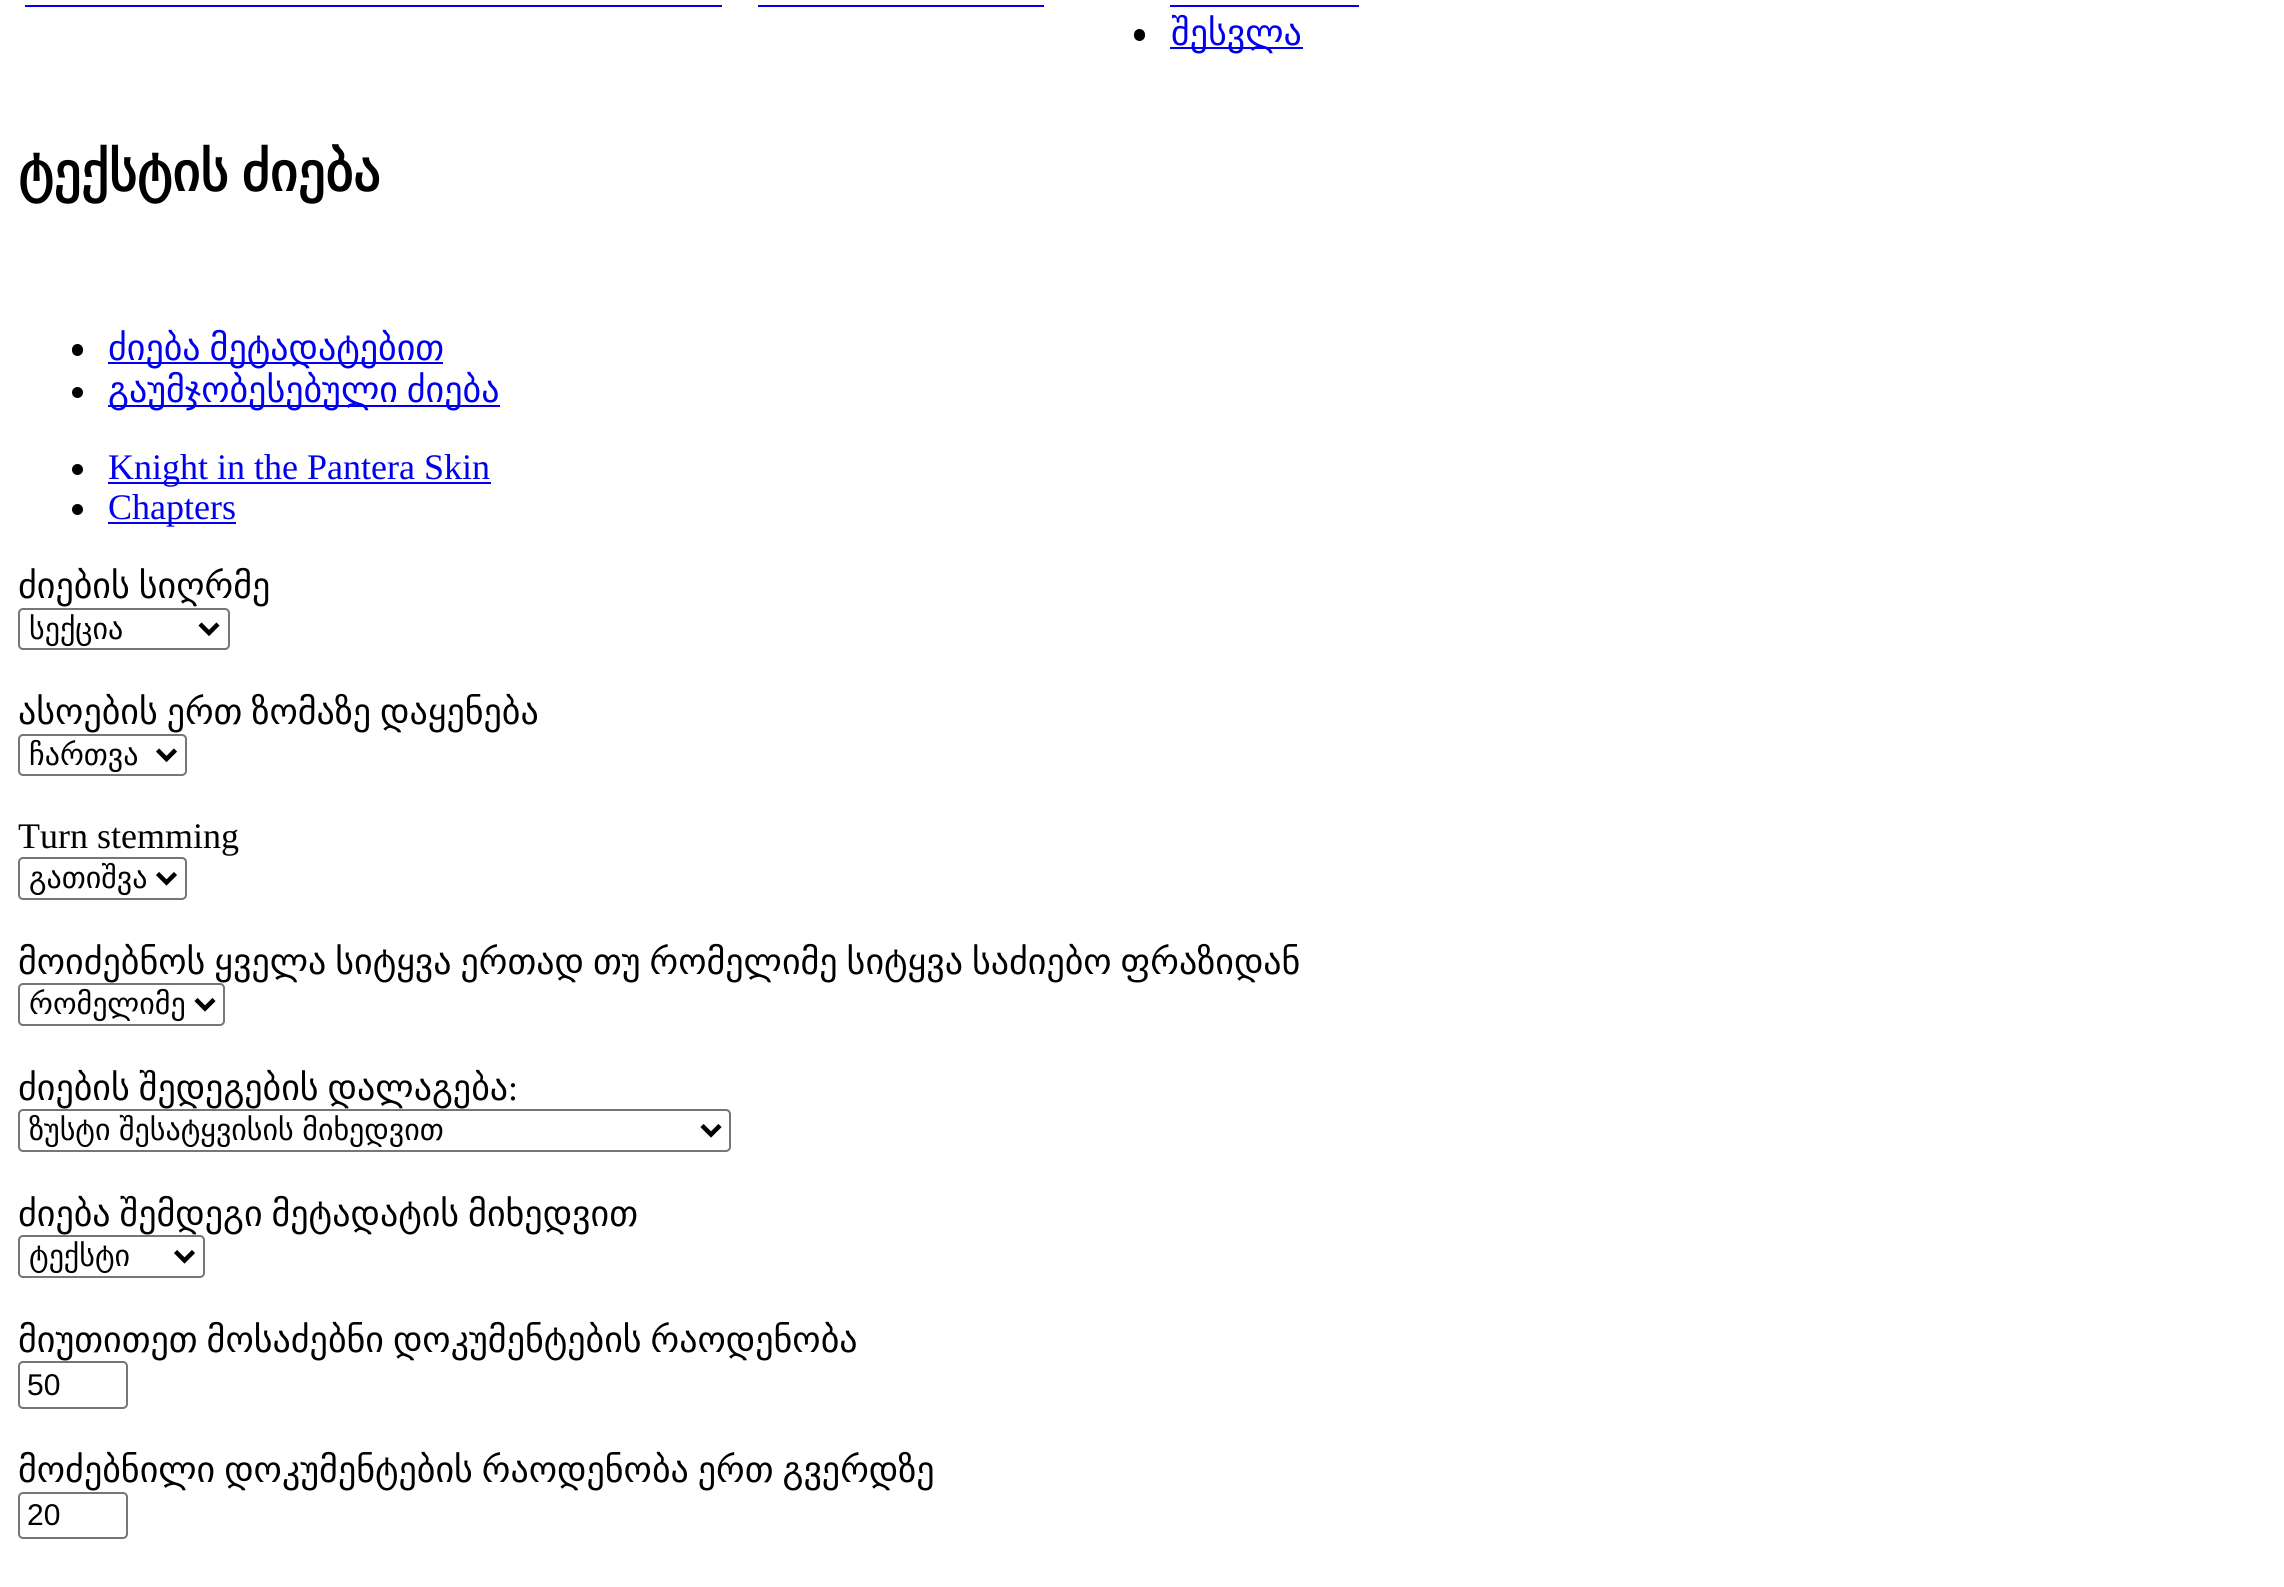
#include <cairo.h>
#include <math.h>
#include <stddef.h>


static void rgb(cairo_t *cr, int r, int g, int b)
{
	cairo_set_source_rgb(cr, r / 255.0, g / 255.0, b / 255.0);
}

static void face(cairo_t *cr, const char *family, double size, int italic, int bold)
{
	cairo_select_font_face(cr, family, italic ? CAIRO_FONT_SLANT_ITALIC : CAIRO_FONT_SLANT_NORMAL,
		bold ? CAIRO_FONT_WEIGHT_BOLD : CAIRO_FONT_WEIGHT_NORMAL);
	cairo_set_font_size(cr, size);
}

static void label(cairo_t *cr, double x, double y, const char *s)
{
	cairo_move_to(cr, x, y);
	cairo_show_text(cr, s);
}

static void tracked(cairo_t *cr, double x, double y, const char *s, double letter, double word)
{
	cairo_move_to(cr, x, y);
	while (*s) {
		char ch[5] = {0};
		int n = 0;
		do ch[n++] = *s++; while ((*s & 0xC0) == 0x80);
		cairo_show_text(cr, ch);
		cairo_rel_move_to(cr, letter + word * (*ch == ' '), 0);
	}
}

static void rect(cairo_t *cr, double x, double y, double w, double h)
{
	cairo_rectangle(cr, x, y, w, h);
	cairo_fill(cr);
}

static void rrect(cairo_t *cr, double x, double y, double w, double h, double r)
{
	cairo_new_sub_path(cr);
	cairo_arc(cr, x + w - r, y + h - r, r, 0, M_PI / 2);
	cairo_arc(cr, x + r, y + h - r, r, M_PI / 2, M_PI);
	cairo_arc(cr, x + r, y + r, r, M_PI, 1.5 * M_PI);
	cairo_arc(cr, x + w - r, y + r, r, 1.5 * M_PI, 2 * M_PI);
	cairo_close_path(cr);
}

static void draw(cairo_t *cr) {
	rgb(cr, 255, 255, 255);
	cairo_paint(cr);
	rgb(cr, 0, 0, 238);
	rect(cr, 25, 5, 697, 2);
	rect(cr, 758, 5, 286, 2);
	rect(cr, 1170, 5, 189, 2);
	rgb(cr, 0, 0, 0);
	rrect(cr, 1134, 29, 11, 12, 5.5);
	cairo_fill(cr);
	rgb(cr, 0, 0, 238);
	rect(cr, 1170, 47, 133, 2);
	face(cr, "DejaVu Sans", 36, 0, 0);
	label(cr, 1171, 45, "შესვლა");
	face(cr, "DejaVu Sans", 54, 0, 1);
	rgb(cr, 0, 0, 0);
	tracked(cr, 18, 191, "ტექსტის ძიება", 0, -4);
	rrect(cr, 72, 344, 11, 12, 5.5);
	cairo_fill(cr);
	rgb(cr, 0, 0, 238);
	rect(cr, 108, 362, 335, 2);
	face(cr, "DejaVu Sans", 36, 0, 0);
	tracked(cr, 108, 360, "ძიება მეტადატებით", 0, -2.5);
	rgb(cr, 0, 0, 0);
	cairo_new_path(cr);
	cairo_arc(cr, 77.5, 392.5, 5.5, 0, 2 * M_PI);
	cairo_fill(cr);
	rgb(cr, 0, 0, 238);
	rect(cr, 108, 405, 392, 2);
	tracked(cr, 108, 402, "გაუმჯობესებული ძიება", 0, -2.5);
	rgb(cr, 0, 0, 0);
	cairo_new_path(cr);
	cairo_arc(cr, 77.5, 469.5, 5.5, 0, 2 * M_PI);
	cairo_fill(cr);
	rgb(cr, 0, 0, 238);
	rect(cr, 108, 482, 383, 2);
	face(cr, "Liberation Serif", 36, 0, 0);
	label(cr, 108, 479, "Knight in the Pantera Skin");
	rgb(cr, 0, 0, 0);
	cairo_new_path(cr);
	cairo_arc(cr, 77.5, 509.5, 5.5, 0, 2 * M_PI);
	cairo_fill(cr);
	rgb(cr, 0, 0, 238);
	rect(cr, 108, 522, 128, 2);
	label(cr, 108, 519, "Chapters");
	face(cr, "DejaVu Sans", 36, 0, 0);
	rgb(cr, 0, 0, 0);
	tracked(cr, 18, 598, "ძიების სიღრმე", 0, -2.5);
	rrect(cr, 19, 609, 210, 40, 4);
	rgb(cr, 118, 118, 118);
	cairo_stroke(cr);
	cairo_new_path(cr);
	cairo_move_to(cr, 200, 624);
	cairo_line_to(cr, 209, 633);
	cairo_line_to(cr, 218, 624);
	rgb(cr, 0, 0, 0);
	cairo_set_line_width(cr, 4.5);
	cairo_stroke(cr);
	face(cr, "DejaVu Sans", 30, 0, 0);
	label(cr, 29, 639, "სექცია");
	face(cr, "DejaVu Sans", 36, 0, 0);
	tracked(cr, 18, 724, "ასოების ერთ ზომაზე დაყენება", 0, -2.5);
	rrect(cr, 19, 735, 167, 40, 4);
	rgb(cr, 118, 118, 118);
	cairo_set_line_width(cr, 2);
	cairo_stroke(cr);
	cairo_new_path(cr);
	cairo_move_to(cr, 157.5, 750);
	cairo_line_to(cr, 166.5, 759);
	cairo_line_to(cr, 175.5, 750);
	rgb(cr, 0, 0, 0);
	cairo_set_line_width(cr, 4.5);
	cairo_stroke(cr);
	face(cr, "DejaVu Sans", 30, 0, 0);
	label(cr, 29, 765, "ჩართვა");
	face(cr, "Liberation Serif", 36, 0, 0);
	label(cr, 18, 848, "Turn stemming");
	rrect(cr, 19, 858, 167, 41, 4);
	rgb(cr, 118, 118, 118);
	cairo_set_line_width(cr, 2);
	cairo_stroke(cr);
	cairo_new_path(cr);
	cairo_move_to(cr, 157.5, 873.5);
	cairo_line_to(cr, 166.5, 882.5);
	cairo_line_to(cr, 175.5, 873.5);
	rgb(cr, 0, 0, 0);
	cairo_set_line_width(cr, 4.5);
	cairo_stroke(cr);
	face(cr, "DejaVu Sans", 30, 0, 0);
	label(cr, 29, 888, "გათიშვა");
	face(cr, "DejaVu Sans", 36, 0, 0);
	tracked(cr, 18, 974, "მოიძებნოს ყველა სიტყვა ერთად თუ რომელიმე სიტყვა საძიებო ფრაზიდან", 0, -2.5);
	rrect(cr, 19, 984, 205, 41, 4);
	rgb(cr, 118, 118, 118);
	cairo_set_line_width(cr, 2);
	cairo_stroke(cr);
	cairo_new_path(cr);
	cairo_move_to(cr, 196, 999.5);
	cairo_line_to(cr, 205, 1008.5);
	cairo_line_to(cr, 214, 999.5);
	rgb(cr, 0, 0, 0);
	cairo_set_line_width(cr, 4.5);
	cairo_stroke(cr);
	face(cr, "DejaVu Sans", 30, 0, 0);
	label(cr, 29, 1014, "რომელიმე");
	face(cr, "DejaVu Sans", 36, 0, 0);
	tracked(cr, 18, 1100, "ძიების შედეგების დალაგება", 0, -2.5);
	face(cr, "Liberation Serif", 36, 0, 0);
	label(cr, 508, 1100, ":");
	rrect(cr, 19, 1110, 711, 41, 4);
	rgb(cr, 118, 118, 118);
	cairo_set_line_width(cr, 2);
	cairo_stroke(cr);
	cairo_new_path(cr);
	cairo_move_to(cr, 702, 1125.5);
	cairo_line_to(cr, 711, 1134.5);
	cairo_line_to(cr, 720, 1125.5);
	rgb(cr, 0, 0, 0);
	cairo_set_line_width(cr, 4.5);
	cairo_stroke(cr);
	face(cr, "DejaVu Sans", 30, 0, 0);
	tracked(cr, 29, 1140, "ზუსტი შესატყვისის მიხედვით", 0, -1);
	face(cr, "DejaVu Sans", 36, 0, 0);
	tracked(cr, 18, 1226, "ძიება შემდეგი მეტადატის მიხედვით", 0, -2.5);
	rrect(cr, 19, 1236, 185, 41, 4);
	rgb(cr, 118, 118, 118);
	cairo_set_line_width(cr, 2);
	cairo_stroke(cr);
	cairo_new_path(cr);
	cairo_move_to(cr, 175.5, 1251.5);
	cairo_line_to(cr, 184.5, 1260.5);
	cairo_line_to(cr, 193.5, 1251.5);
	rgb(cr, 0, 0, 0);
	cairo_set_line_width(cr, 4.5);
	cairo_stroke(cr);
	face(cr, "DejaVu Sans", 30, 0, 0);
	label(cr, 29, 1266, "ტექსტი");
	face(cr, "DejaVu Sans", 36, 0, 0);
	tracked(cr, 18, 1352, "მიუთითეთ მოსაძებნი დოკუმენტების რაოდენობა", 0, -2.5);
	rrect(cr, 19, 1362, 108, 46, 4);
	rgb(cr, 118, 118, 118);
	cairo_set_line_width(cr, 2);
	cairo_stroke(cr);
	face(cr, "Liberation Sans", 30, 0, 0);
	rgb(cr, 0, 0, 0);
	label(cr, 27, 1395, "50");
	face(cr, "DejaVu Sans", 36, 0, 0);
	tracked(cr, 18, 1482, "მოძებნილი დოკუმენტების რაოდენობა ერთ გვერდზე", 0, -2.5);
	rrect(cr, 19, 1493, 108, 45, 4);
	rgb(cr, 118, 118, 118);
	cairo_stroke(cr);
	face(cr, "Liberation Sans", 30, 0, 0);
	rgb(cr, 0, 0, 0);
	label(cr, 27, 1525, "20");
}

int main(void) {
	cairo_surface_t *surface = cairo_image_surface_create(CAIRO_FORMAT_RGB24, 2284, 1587);
	cairo_t *cr = cairo_create(surface);
	cairo_font_options_t *options = cairo_font_options_create();
	cairo_font_options_set_hint_metrics(options, CAIRO_HINT_METRICS_OFF);
	cairo_font_options_set_hint_style(options, CAIRO_HINT_STYLE_NONE);
	cairo_set_font_options(cr, options);
	cairo_set_miter_limit(cr, 4);
	draw(cr);
	cairo_surface_write_to_png(surface, "render.png");
	cairo_font_options_destroy(options);
	cairo_destroy(cr);
	cairo_surface_destroy(surface);
	return 0;
}
